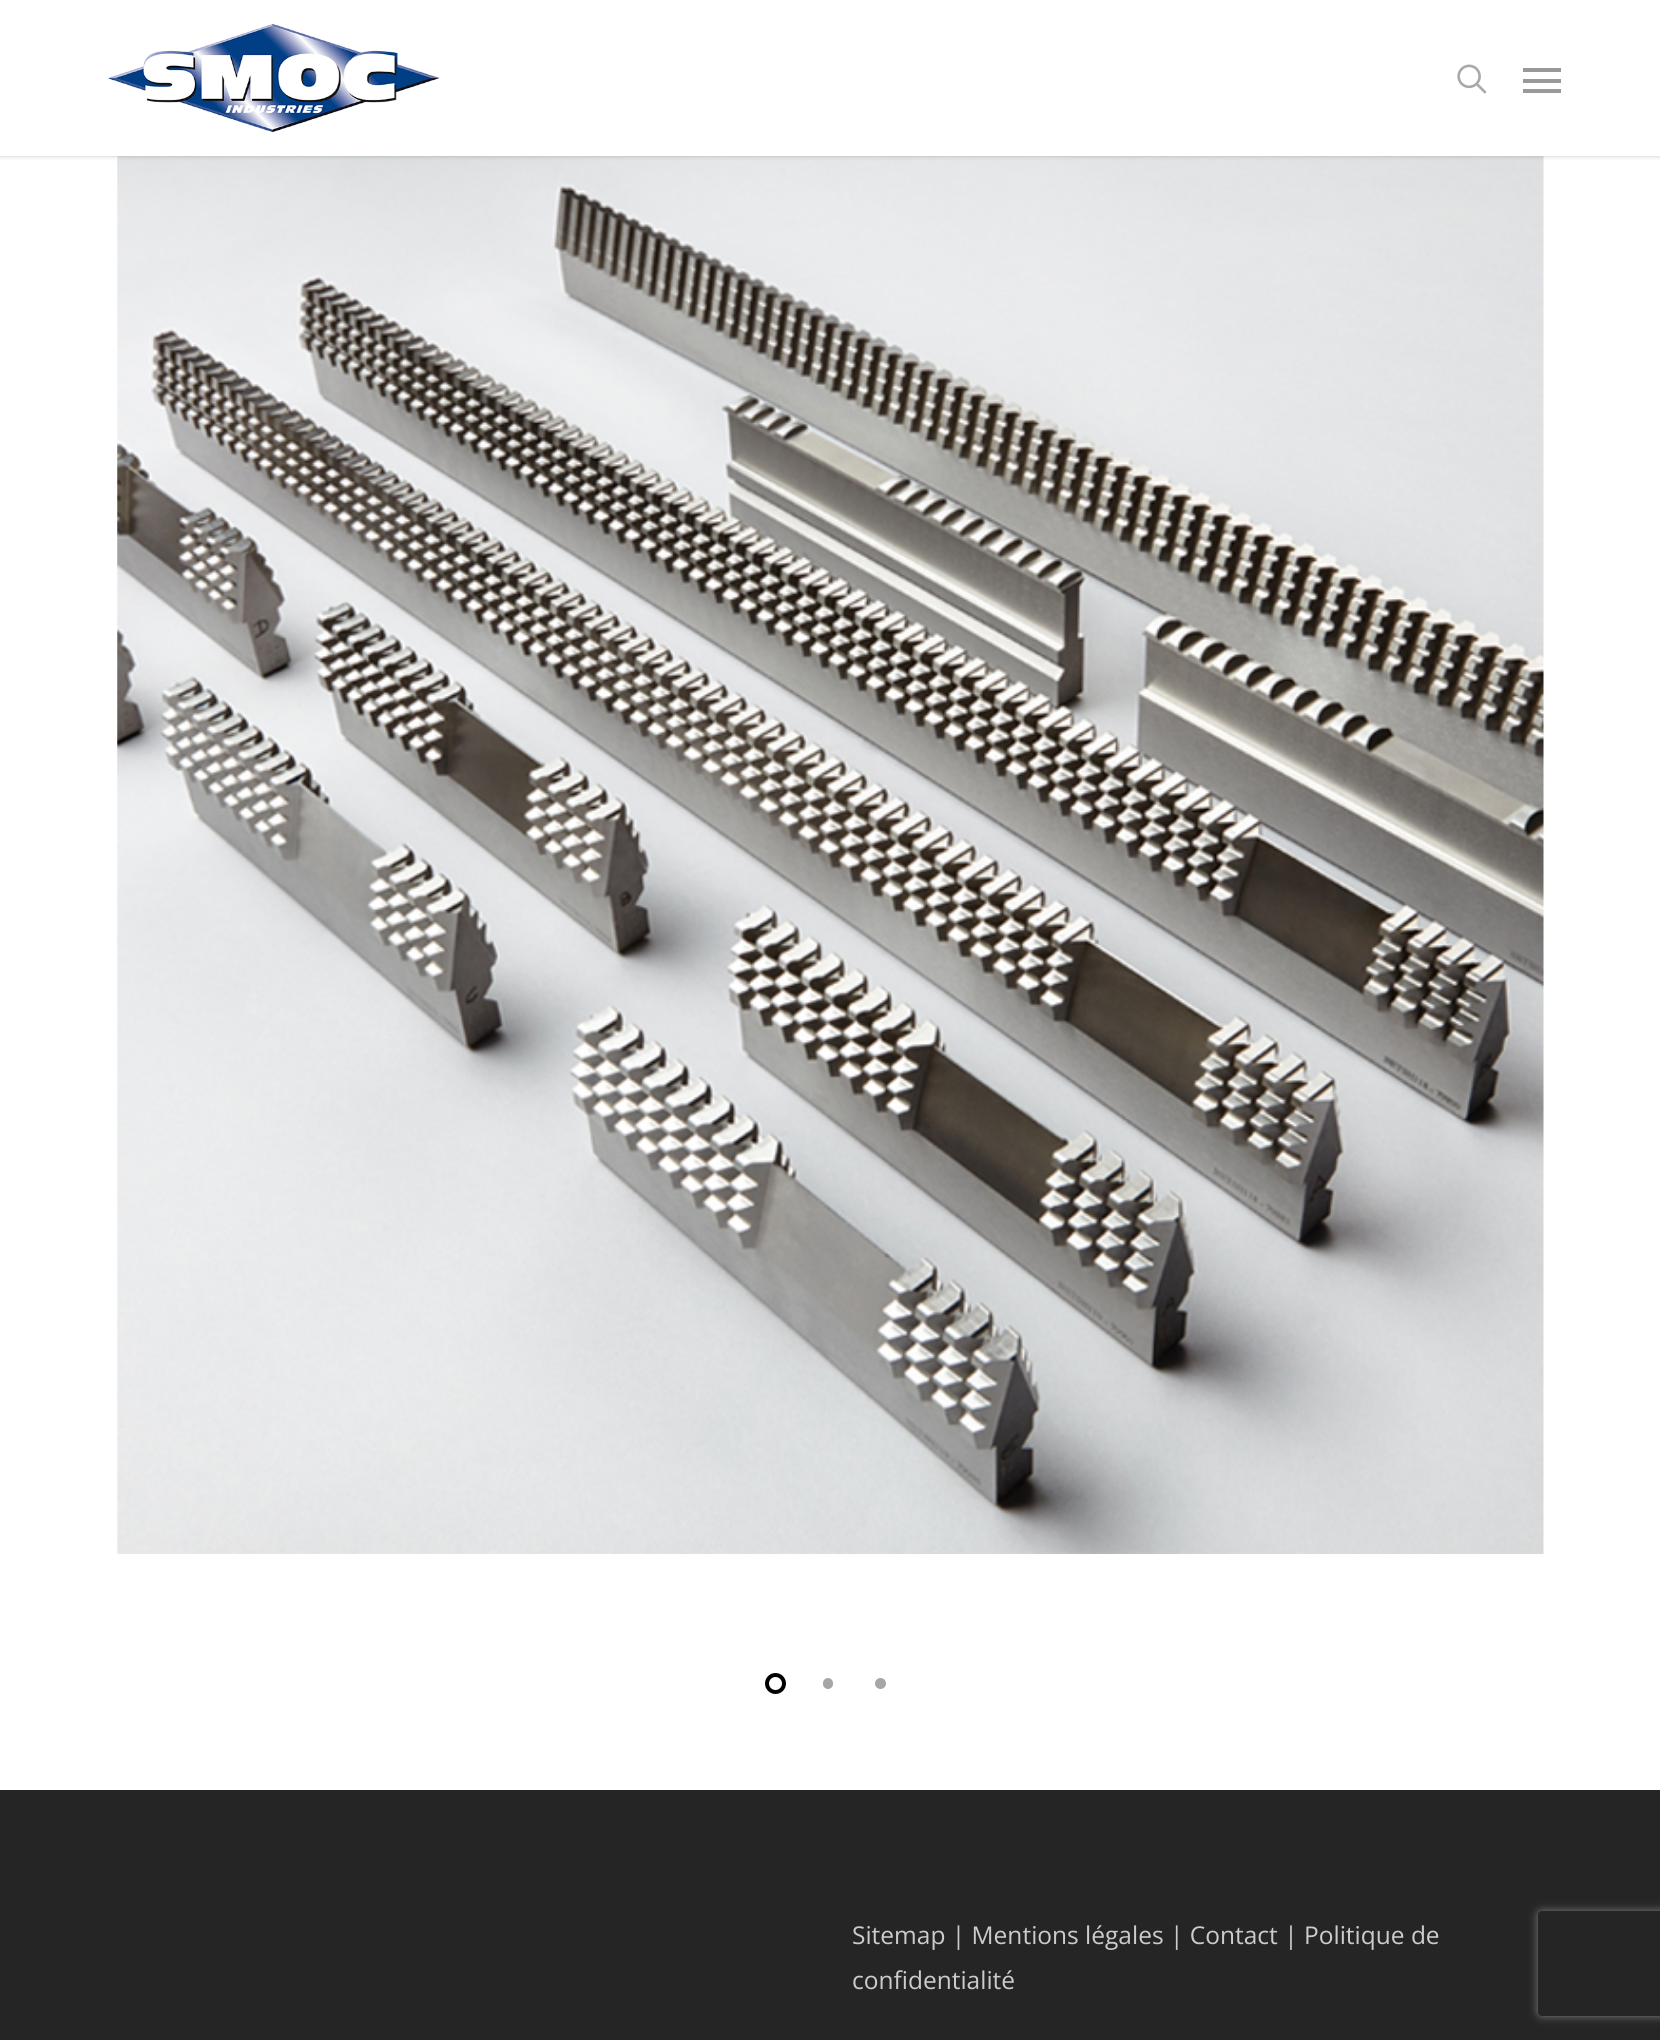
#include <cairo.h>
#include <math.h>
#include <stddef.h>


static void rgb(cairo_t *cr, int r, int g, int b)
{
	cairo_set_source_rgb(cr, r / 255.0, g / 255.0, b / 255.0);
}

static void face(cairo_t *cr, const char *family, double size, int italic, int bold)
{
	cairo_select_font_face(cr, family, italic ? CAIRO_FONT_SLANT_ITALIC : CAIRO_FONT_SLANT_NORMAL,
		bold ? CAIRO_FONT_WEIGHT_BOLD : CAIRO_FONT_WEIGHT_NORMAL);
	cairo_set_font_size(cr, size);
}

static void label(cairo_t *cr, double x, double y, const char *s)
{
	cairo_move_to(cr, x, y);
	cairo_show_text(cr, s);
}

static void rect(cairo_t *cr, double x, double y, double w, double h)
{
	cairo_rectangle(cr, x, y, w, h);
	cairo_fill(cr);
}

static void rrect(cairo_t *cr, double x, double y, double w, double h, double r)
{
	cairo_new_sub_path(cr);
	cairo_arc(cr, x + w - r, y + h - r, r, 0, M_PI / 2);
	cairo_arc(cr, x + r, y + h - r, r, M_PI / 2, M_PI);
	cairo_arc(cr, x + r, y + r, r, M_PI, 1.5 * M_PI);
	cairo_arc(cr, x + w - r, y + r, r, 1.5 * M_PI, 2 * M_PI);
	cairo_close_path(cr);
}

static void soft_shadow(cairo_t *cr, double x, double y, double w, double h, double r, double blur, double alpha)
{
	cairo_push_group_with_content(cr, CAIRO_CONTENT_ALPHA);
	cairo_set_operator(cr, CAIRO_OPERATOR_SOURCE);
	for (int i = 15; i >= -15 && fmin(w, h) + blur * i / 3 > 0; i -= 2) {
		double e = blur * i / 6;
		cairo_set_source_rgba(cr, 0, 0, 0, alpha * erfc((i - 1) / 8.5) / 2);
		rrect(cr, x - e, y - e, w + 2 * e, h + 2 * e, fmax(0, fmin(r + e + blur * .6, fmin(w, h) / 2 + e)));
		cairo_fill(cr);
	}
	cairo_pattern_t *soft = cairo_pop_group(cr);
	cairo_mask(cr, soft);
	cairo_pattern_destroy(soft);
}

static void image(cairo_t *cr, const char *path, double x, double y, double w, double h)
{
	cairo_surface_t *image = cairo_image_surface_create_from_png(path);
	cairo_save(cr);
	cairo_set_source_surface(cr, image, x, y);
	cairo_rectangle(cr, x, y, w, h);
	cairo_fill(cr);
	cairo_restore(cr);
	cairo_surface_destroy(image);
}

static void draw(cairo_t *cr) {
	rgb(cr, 255, 255, 255);
	cairo_paint(cr);
	image(cr, "image2.png", 117, 156, 1427, 1398);
	rgb(cr, 0, 0, 0);
	soft_shadow(cr, 0, 0, 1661, 156, 0, 2.5, 0.22);
	rgb(cr, 255, 255, 255);
	rect(cr, 0, 0, 1660, 156);
	image(cr, "image0.png", 108, 23, 332, 110);
	image(cr, "image1.png", 1457, 64, 30, 30);
	rgb(cr, 153, 153, 153);
	rect(cr, 1523, 68, 38, 4);
	rect(cr, 1523, 89, 38, 4);
	rect(cr, 1523, 79, 38, 4);
	cairo_arc(cr, 775.5, 1683.5, 8.5, 0, 2 * M_PI);
	rgb(cr, 0, 0, 0);
	cairo_set_line_width(cr, 4);
	cairo_stroke(cr);
	rgb(cr, 166, 166, 166);
	rrect(cr, 823, 1678, 10, 11, 5);
	cairo_fill(cr);
	cairo_arc(cr, 880.5, 1683.5, 5.5, 0, 2 * M_PI);
	cairo_fill(cr);
	rgb(cr, 37, 37, 37);
	rect(cr, 0, 1790, 1660, 250);
	face(cr, "Open Sans", 24.5, 0, 0);
	rgb(cr, 204, 204, 204);
	label(cr, 852, 1944, "Sitemap | Mentions légales | Contact | Politique de");
	label(cr, 852, 1989, "confidentialité");
	cairo_save(cr);
	cairo_set_fill_rule(cr, CAIRO_FILL_RULE_EVEN_ODD);
	cairo_new_path(cr);
	cairo_move_to(cr, 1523, 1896);
	cairo_line_to(cr, 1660, 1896);
	cairo_line_to(cr, 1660, 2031);
	cairo_line_to(cr, 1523, 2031);
	cairo_close_path(cr);
	cairo_move_to(cr, 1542, 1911);
	cairo_line_to(cr, 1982, 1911);
	cairo_curve_to(cr, 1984, 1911, 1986, 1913, 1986, 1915);
	cairo_line_to(cr, 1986, 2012);
	cairo_curve_to(cr, 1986, 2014, 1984, 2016, 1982, 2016);
	cairo_line_to(cr, 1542, 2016);
	cairo_curve_to(cr, 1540, 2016, 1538, 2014, 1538, 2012);
	cairo_line_to(cr, 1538, 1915);
	cairo_curve_to(cr, 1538, 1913, 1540, 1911, 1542, 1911);
	cairo_close_path(cr);
	cairo_clip(cr);
	rgb(cr, 128, 128, 128);
	soft_shadow(cr, 1538, 1911, 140, 105, 4, 4.5, 1);
	cairo_restore(cr);
}

int main(void) {
	cairo_surface_t *surface = cairo_image_surface_create(CAIRO_FORMAT_RGB24, 1660, 2040);
	cairo_t *cr = cairo_create(surface);
	cairo_font_options_t *options = cairo_font_options_create();
	cairo_font_options_set_hint_metrics(options, CAIRO_HINT_METRICS_OFF);
	cairo_font_options_set_hint_style(options, CAIRO_HINT_STYLE_NONE);
	cairo_set_font_options(cr, options);
	cairo_set_miter_limit(cr, 4);
	draw(cr);
	cairo_surface_write_to_png(surface, "render.png");
	cairo_font_options_destroy(options);
	cairo_destroy(cr);
	cairo_surface_destroy(surface);
	return 0;
}
